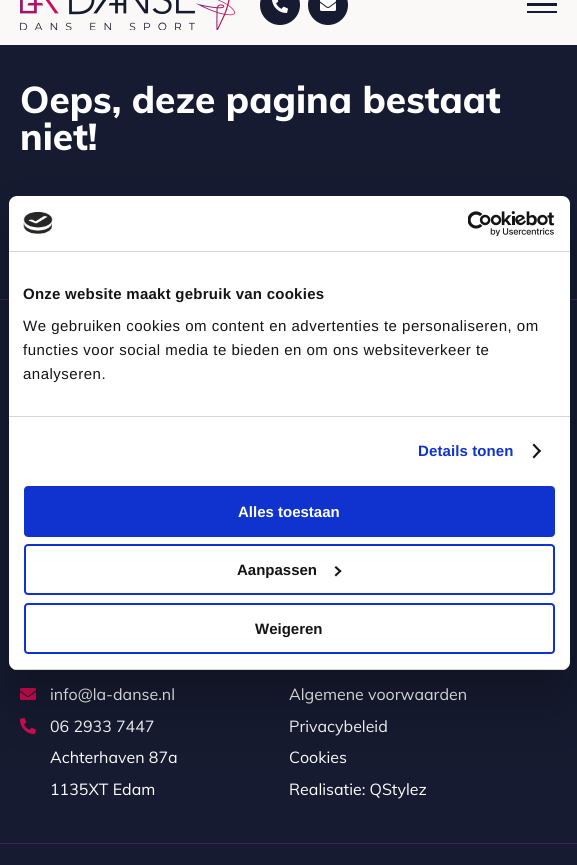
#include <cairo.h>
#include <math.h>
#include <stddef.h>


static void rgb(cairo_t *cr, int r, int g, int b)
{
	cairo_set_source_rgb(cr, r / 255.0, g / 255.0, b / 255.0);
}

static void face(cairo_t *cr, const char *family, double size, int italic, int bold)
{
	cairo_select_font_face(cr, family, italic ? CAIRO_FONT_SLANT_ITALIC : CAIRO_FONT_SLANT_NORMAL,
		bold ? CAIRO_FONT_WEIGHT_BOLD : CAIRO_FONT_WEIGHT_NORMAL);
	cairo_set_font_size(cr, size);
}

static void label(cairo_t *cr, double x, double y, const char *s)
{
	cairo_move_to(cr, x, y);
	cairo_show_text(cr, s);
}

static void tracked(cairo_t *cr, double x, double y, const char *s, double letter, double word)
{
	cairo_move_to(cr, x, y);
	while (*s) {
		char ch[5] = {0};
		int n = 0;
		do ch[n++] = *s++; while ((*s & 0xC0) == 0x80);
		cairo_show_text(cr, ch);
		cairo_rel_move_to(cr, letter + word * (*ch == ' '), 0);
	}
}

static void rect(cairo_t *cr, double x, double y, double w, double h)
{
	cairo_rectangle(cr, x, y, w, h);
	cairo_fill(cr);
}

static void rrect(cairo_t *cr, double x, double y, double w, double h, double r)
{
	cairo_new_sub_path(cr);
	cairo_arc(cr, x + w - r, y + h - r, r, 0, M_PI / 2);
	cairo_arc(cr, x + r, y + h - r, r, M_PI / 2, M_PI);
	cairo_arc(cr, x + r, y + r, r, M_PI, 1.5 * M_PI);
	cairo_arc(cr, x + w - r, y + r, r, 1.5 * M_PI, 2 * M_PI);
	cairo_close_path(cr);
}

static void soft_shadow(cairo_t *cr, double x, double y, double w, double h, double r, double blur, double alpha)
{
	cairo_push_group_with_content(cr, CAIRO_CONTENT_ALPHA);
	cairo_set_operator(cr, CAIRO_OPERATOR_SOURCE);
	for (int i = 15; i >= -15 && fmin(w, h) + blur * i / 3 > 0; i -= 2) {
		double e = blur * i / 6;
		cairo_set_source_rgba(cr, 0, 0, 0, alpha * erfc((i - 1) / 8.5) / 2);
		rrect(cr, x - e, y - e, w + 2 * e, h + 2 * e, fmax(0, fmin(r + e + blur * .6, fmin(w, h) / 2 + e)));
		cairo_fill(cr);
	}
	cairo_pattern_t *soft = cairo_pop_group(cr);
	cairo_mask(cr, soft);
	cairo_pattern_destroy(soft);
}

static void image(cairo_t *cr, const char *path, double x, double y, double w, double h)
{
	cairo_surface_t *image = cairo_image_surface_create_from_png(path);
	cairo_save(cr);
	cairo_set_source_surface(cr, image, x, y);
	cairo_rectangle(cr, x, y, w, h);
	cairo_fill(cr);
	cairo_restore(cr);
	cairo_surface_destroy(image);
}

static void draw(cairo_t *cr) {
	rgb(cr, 22, 27, 49);
	cairo_paint(cr);
	rgb(cr, 251, 249, 248);
	rect(cr, 0, 0, 577, 45);
	image(cr, "image0.png", 20, 0, 215, 30);
	rgb(cr, 22, 27, 49);
	cairo_arc(cr, 280, 5, 20, 0, 2 * M_PI);
	cairo_fill(cr);
	image(cr, "image1.png", 272, 0, 16, 13);
	cairo_arc(cr, 328, 5, 20, 0, 2 * M_PI);
	cairo_fill(cr);
	image(cr, "image2.png", 320, 0, 16, 11);
	rect(cr, 527, 3, 30, 3);
	rect(cr, 527, 11, 30, 2);
	face(cr, "Muli ExtraBold", 37, 0, 0);
	rgb(cr, 255, 255, 255);
	label(cr, 20, 113, "Oeps, deze pagina bestaat");
	label(cr, 20, 150, "niet!");
	rgb(cr, 62, 32, 90);
	rect(cr, 0, 299, 577, 1);
	rect(cr, 0, 843, 577, 1);
	image(cr, "image3.png", 20, 688, 16, 12);
	face(cr, "Muli", 16, 0, 0);
	rgb(cr, 255, 255, 255);
	label(cr, 50, 700, "info@la-danse.nl");
	image(cr, "image4.png", 20, 718, 16, 16);
	label(cr, 50, 732, "06 2933 7447");
	label(cr, 50, 763, "Achterhaven 87a");
	label(cr, 50, 795, "1135XT Edam");
	label(cr, 289, 700, "Algemene voorwaarden");
	label(cr, 289, 732, "Privacybeleid");
	label(cr, 289, 763, "Cookies");
	label(cr, 289, 795, "Realisatie: QStylez");
	rgb(cr, 0, 0, 0);
	soft_shadow(cr, 9, 228, 561, 474, 8, 34, 0.3);
	rgb(cr, 255, 255, 255);
	rrect(cr, 9, 196, 561, 474, 8);
	cairo_fill(cr);
	rgb(cr, 214, 214, 214);
	rect(cr, 9, 251, 561, 1);
	image(cr, "image5.png", 23, 212, 30, 22);
	image(cr, "image6.png", 468, 211, 87, 25);
	rect(cr, 9, 416, 561, 1);
	face(cr, "Liberation Sans", 15, 0, 1);
	rgb(cr, 20, 20, 20);
	tracked(cr, 23, 299, "Onze website maakt gebruik van cookies", 0.25, 0);
	face(cr, "Liberation Sans", 15, 0, 0);
	tracked(cr, 23, 331, "We gebruiken cookies om content en advertenties te personaliseren, om", 0.5, 0);
	tracked(cr, 23, 355, "functies voor social media te bieden en om ons websiteverkeer te", 0.5, 0);
	tracked(cr, 23, 379, "analyseren.", 0.5, 0);
	face(cr, "Liberation Sans", 15, 0, 1);
	rgb(cr, 16, 50, 207);
	tracked(cr, 418, 456, "Details tonen", 0.1, 0);
	rgb(cr, 20, 20, 20);
	cairo_new_path(cr);
	cairo_move_to(cr, 534, 443.5);
	cairo_line_to(cr, 541, 451);
	cairo_line_to(cr, 539.5, 452.5);
	cairo_line_to(cr, 532.5, 445);
	cairo_close_path(cr);
	cairo_fill(cr);
	cairo_new_path(cr);
	cairo_move_to(cr, 539.5, 449.5);
	cairo_line_to(cr, 541, 451);
	cairo_line_to(cr, 534, 458.5);
	cairo_line_to(cr, 532.5, 457);
	cairo_close_path(cr);
	cairo_fill(cr);
	cairo_save(cr);
	rrect(cr, 9, 196, 561, 474, 8);
	cairo_clip(cr);
	rgb(cr, 214, 214, 214);
	rect(cr, 9, 669, 561, 1);
	cairo_restore(cr);
	rgb(cr, 16, 50, 207);
	rrect(cr, 25, 487, 529, 49, 3);
	cairo_fill_preserve(cr);
	cairo_stroke(cr);
	rgb(cr, 255, 255, 255);
	label(cr, 238, 517, "Alles toestaan");
	rrect(cr, 25, 545, 529, 49, 3);
	rgb(cr, 16, 50, 207);
	cairo_stroke(cr);
	rgb(cr, 20, 20, 20);
	label(cr, 237, 575, "Aanpassen");
	cairo_new_path(cr);
	cairo_move_to(cr, 336, 566);
	cairo_line_to(cr, 341.5, 571);
	cairo_line_to(cr, 340, 572.5);
	cairo_line_to(cr, 334.5, 567.5);
	cairo_close_path(cr);
	cairo_fill(cr);
	cairo_new_path(cr);
	cairo_move_to(cr, 340, 570);
	cairo_line_to(cr, 341.5, 571);
	cairo_line_to(cr, 336, 576.5);
	cairo_line_to(cr, 334.5, 575);
	cairo_close_path(cr);
	cairo_fill(cr);
	rrect(cr, 25, 604, 529, 49, 3);
	rgb(cr, 16, 50, 207);
	cairo_stroke(cr);
	rgb(cr, 20, 20, 20);
	label(cr, 255, 634, "Weigeren");
}

int main(void) {
	cairo_surface_t *surface = cairo_image_surface_create(CAIRO_FORMAT_RGB24, 577, 865);
	cairo_t *cr = cairo_create(surface);
	cairo_font_options_t *options = cairo_font_options_create();
	cairo_font_options_set_hint_metrics(options, CAIRO_HINT_METRICS_OFF);
	cairo_font_options_set_hint_style(options, CAIRO_HINT_STYLE_NONE);
	cairo_set_font_options(cr, options);
	cairo_set_miter_limit(cr, 4);
	draw(cr);
	cairo_surface_write_to_png(surface, "render.png");
	cairo_font_options_destroy(options);
	cairo_destroy(cr);
	cairo_surface_destroy(surface);
	return 0;
}
